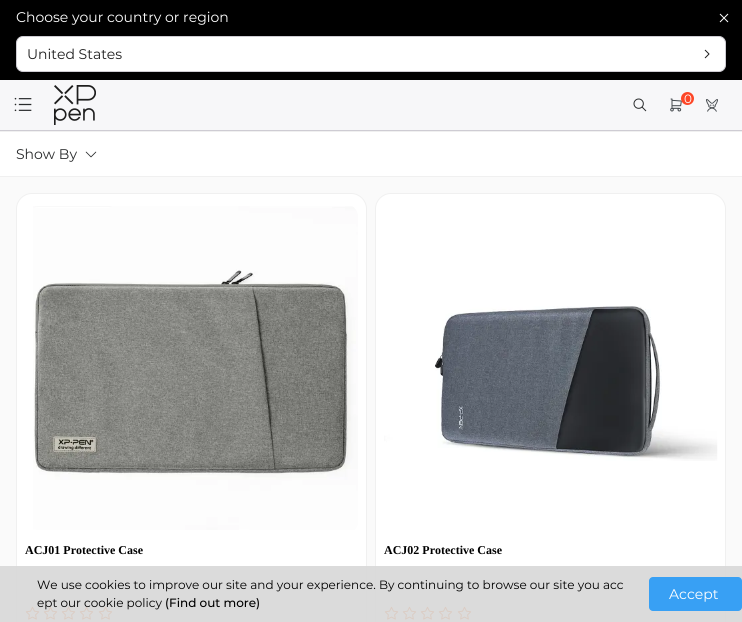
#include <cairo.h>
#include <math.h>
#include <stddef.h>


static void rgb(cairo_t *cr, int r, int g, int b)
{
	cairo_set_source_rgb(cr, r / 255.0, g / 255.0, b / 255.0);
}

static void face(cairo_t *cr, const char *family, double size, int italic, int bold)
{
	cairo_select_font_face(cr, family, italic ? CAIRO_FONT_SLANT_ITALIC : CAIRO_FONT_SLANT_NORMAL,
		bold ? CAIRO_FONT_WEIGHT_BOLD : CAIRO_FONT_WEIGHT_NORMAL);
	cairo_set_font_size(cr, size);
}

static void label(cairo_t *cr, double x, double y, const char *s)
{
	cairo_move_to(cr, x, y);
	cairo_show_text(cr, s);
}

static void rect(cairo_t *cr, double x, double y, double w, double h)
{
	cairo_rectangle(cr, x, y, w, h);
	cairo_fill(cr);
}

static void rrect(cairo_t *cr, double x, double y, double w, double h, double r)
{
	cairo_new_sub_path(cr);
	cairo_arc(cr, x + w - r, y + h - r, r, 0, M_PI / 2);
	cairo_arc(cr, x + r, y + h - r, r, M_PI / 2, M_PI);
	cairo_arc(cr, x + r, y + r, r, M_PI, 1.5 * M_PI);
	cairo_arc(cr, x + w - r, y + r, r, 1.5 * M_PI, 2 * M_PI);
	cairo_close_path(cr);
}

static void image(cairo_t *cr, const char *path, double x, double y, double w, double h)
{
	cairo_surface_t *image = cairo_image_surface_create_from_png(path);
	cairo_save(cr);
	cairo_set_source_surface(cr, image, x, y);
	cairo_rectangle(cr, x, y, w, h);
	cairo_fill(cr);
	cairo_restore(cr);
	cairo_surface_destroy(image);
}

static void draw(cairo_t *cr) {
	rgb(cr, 255, 255, 255);
	cairo_paint(cr);
	rgb(cr, 247, 247, 249);
	rect(cr, 0, 80, 742, 50);
	rgb(cr, 0, 0, 0);
	rect(cr, 0, 0, 742, 80);
	face(cr, "Montserrat", 14, 0, 0);
	rgb(cr, 255, 255, 255);
	label(cr, 16, 22, "Choose your country or region");
	image(cr, "image0.png", 719, 13, 10, 10);
	rrect(cr, 16.5, 36.5, 709, 35, 6.5);
	cairo_fill_preserve(cr);
	rgb(cr, 206, 204, 211);
	cairo_set_line_width(cr, 1);
	cairo_stroke(cr);
	rgb(cr, 31, 31, 31);
	label(cr, 27, 59, "United States");
	image(cr, "image1.png", 704, 49, 6, 10);
	rgb(cr, 206, 204, 211);
	rect(cr, 0, 130, 742, 1);
	image(cr, "image2.png", 14, 97, 18, 15);
	image(cr, "image3.png", 54, 85, 42, 40);
	image(cr, "image4.png", 633, 98, 14, 14);
	image(cr, "image5.png", 670, 98, 12, 14);
	rgb(cr, 253, 70, 39);
	cairo_arc(cr, 687.5, 98.5, 6.5, 0, 2 * M_PI);
	cairo_fill(cr);
	face(cr, "Montserrat", 12, 0, 0);
	rgb(cr, 255, 255, 255);
	label(cr, 684, 103, "0");
	image(cr, "image6.png", 706, 99, 12, 13);
	rgb(cr, 240, 240, 240);
	rect(cr, 0, 131, 742, 1);
	rect(cr, 0, 176, 742, 1);
	face(cr, "Montserrat", 14, 0, 0);
	rgb(cr, 41, 43, 44);
	label(cr, 16, 159, "Show By");
	image(cr, "image7.png", 85, 151, 12, 7);
	rgb(cr, 250, 250, 250);
	rect(cr, 0, 177, 742, 445);
	rgb(cr, 255, 255, 255);
	rrect(cr, 16.5, 193.5, 350, 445, 15.5);
	cairo_fill_preserve(cr);
	rgb(cr, 240, 240, 240);
	cairo_stroke(cr);
	image(cr, "image8.png", 33, 206, 325, 324);
	face(cr, "Liberation Serif", 12, 0, 1);
	rgb(cr, 0, 0, 0);
	label(cr, 25, 554, "ACJ01 Protective Case");
	image(cr, "image9.png", 25, 606, 15, 14);
	image(cr, "image9.png", 43, 606, 15, 14);
	image(cr, "image9.png", 61, 606, 15, 14);
	image(cr, "image9.png", 79, 606, 15, 14);
	image(cr, "image9.png", 98, 606, 15, 14);
	rgb(cr, 255, 255, 255);
	rrect(cr, 375.5, 193.5, 350, 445, 15.5);
	cairo_fill_preserve(cr);
	rgb(cr, 240, 240, 240);
	cairo_stroke(cr);
	image(cr, "image10.png", 384, 306, 334, 155);
	rgb(cr, 0, 0, 0);
	label(cr, 384, 554, "ACJ02 Protective Case");
	image(cr, "image9.png", 384, 606, 15, 14);
	image(cr, "image9.png", 402, 606, 15, 14);
	image(cr, "image9.png", 420, 606, 15, 14);
	image(cr, "image9.png", 438, 606, 15, 14);
	image(cr, "image9.png", 457, 606, 15, 14);
	cairo_set_source_rgba(cr, 0.843, 0.843, 0.843, 0.9);
	rect(cr, 0, 566, 742, 56);
	face(cr, "Montserrat", 12, 0, 0);
	rgb(cr, 0, 0, 0);
	label(cr, 37, 589, "We use cookies to improve our site and your experience. By continuing to browse our site you acc");
	label(cr, 37, 607, "ept our cookie policy");
	face(cr, "Montserrat Medium", 12, 0, 0);
	label(cr, 165, 607, "(Find out more)");
	rgb(cr, 56, 160, 244);
	rrect(cr, 649, 577, 93, 34, 4);
	cairo_fill(cr);
	face(cr, "Montserrat", 14, 0, 0);
	rgb(cr, 255, 255, 255);
	label(cr, 669, 599, "Accept");
}

int main(void) {
	cairo_surface_t *surface = cairo_image_surface_create(CAIRO_FORMAT_RGB24, 742, 622);
	cairo_t *cr = cairo_create(surface);
	cairo_font_options_t *options = cairo_font_options_create();
	cairo_font_options_set_hint_metrics(options, CAIRO_HINT_METRICS_OFF);
	cairo_font_options_set_hint_style(options, CAIRO_HINT_STYLE_NONE);
	cairo_set_font_options(cr, options);
	cairo_set_miter_limit(cr, 4);
	draw(cr);
	cairo_surface_write_to_png(surface, "render.png");
	cairo_font_options_destroy(options);
	cairo_destroy(cr);
	cairo_surface_destroy(surface);
	return 0;
}
